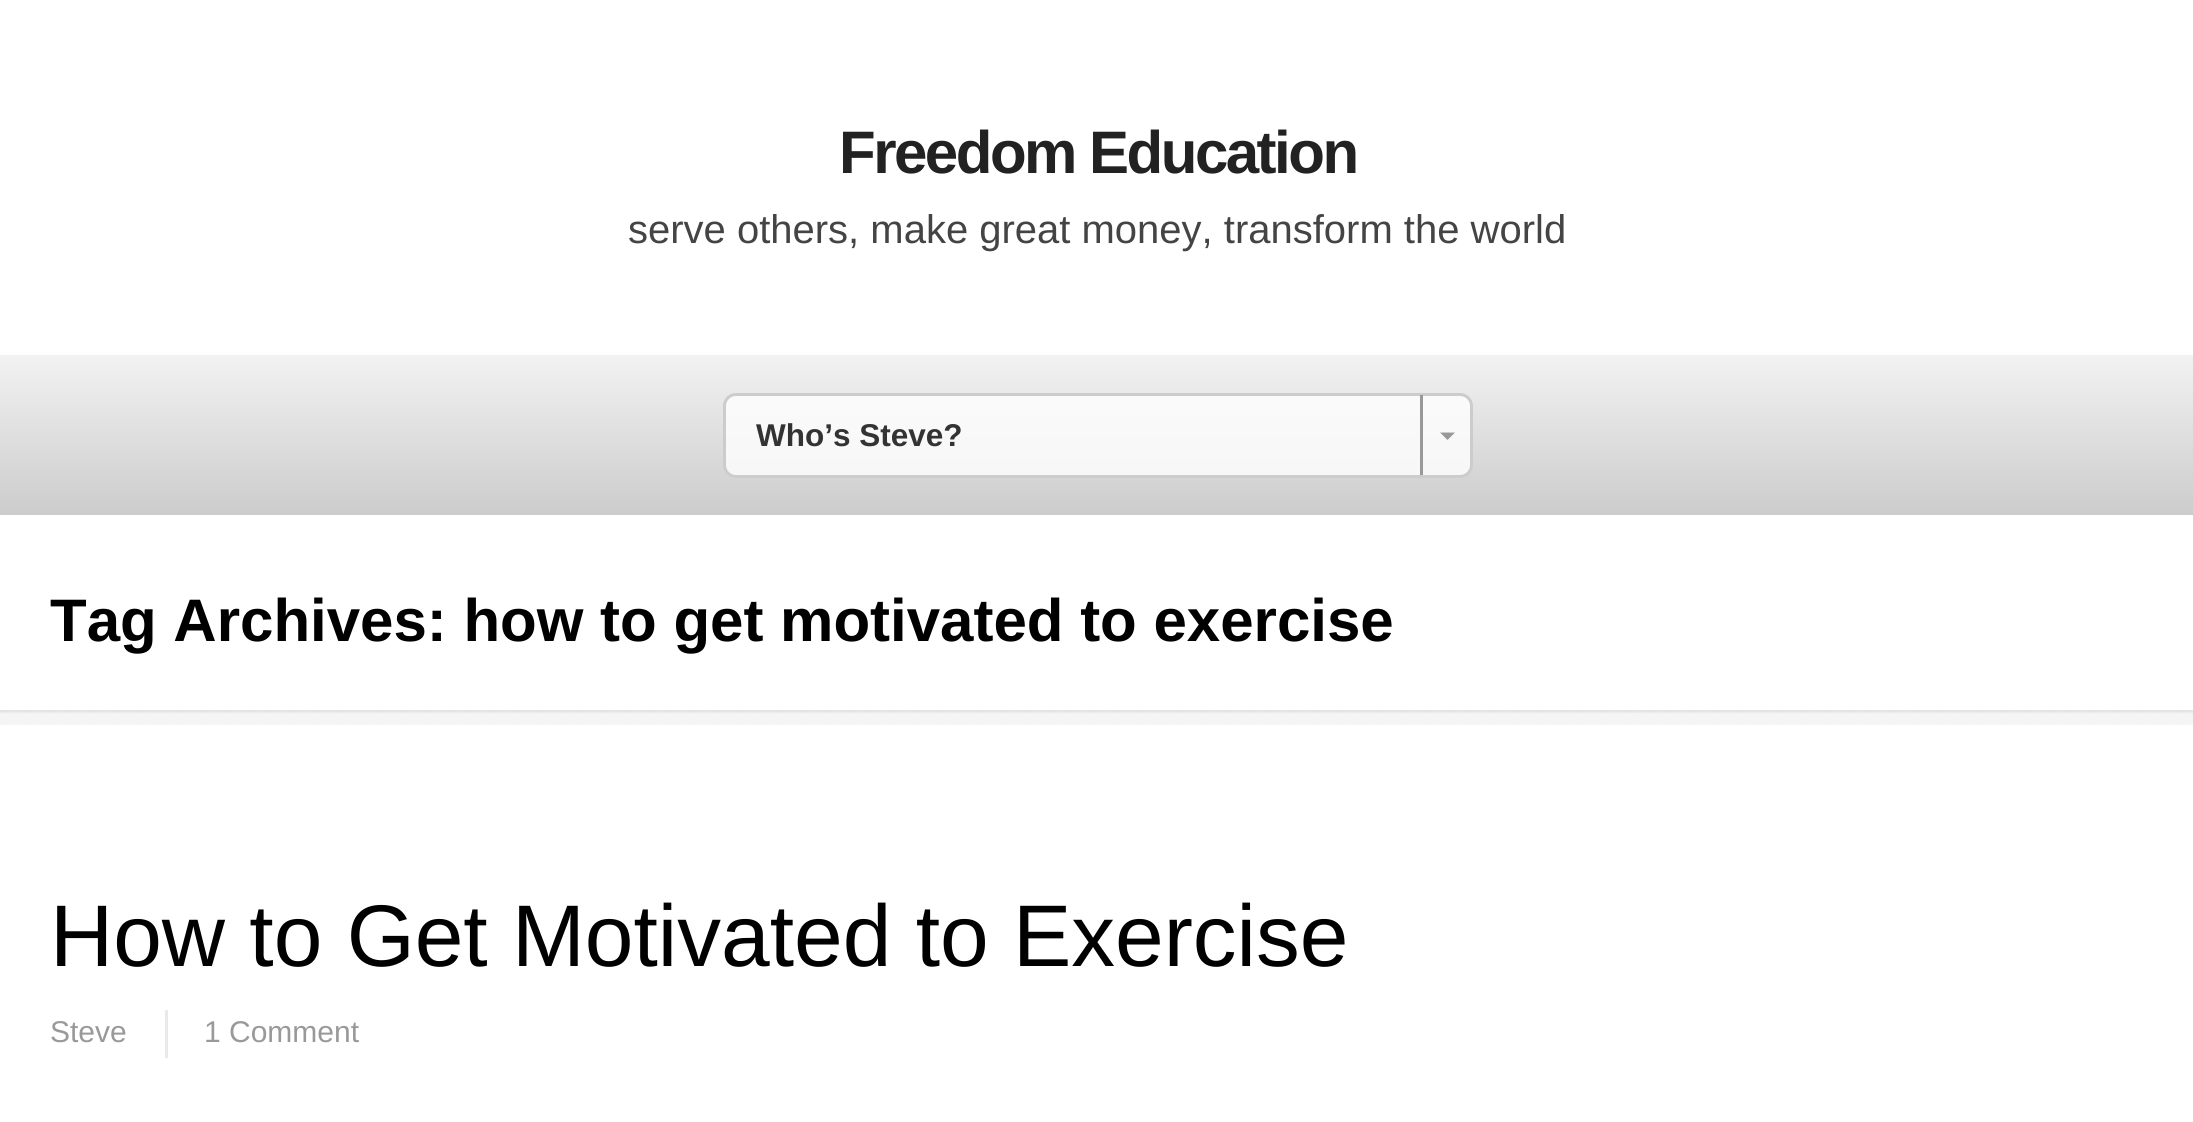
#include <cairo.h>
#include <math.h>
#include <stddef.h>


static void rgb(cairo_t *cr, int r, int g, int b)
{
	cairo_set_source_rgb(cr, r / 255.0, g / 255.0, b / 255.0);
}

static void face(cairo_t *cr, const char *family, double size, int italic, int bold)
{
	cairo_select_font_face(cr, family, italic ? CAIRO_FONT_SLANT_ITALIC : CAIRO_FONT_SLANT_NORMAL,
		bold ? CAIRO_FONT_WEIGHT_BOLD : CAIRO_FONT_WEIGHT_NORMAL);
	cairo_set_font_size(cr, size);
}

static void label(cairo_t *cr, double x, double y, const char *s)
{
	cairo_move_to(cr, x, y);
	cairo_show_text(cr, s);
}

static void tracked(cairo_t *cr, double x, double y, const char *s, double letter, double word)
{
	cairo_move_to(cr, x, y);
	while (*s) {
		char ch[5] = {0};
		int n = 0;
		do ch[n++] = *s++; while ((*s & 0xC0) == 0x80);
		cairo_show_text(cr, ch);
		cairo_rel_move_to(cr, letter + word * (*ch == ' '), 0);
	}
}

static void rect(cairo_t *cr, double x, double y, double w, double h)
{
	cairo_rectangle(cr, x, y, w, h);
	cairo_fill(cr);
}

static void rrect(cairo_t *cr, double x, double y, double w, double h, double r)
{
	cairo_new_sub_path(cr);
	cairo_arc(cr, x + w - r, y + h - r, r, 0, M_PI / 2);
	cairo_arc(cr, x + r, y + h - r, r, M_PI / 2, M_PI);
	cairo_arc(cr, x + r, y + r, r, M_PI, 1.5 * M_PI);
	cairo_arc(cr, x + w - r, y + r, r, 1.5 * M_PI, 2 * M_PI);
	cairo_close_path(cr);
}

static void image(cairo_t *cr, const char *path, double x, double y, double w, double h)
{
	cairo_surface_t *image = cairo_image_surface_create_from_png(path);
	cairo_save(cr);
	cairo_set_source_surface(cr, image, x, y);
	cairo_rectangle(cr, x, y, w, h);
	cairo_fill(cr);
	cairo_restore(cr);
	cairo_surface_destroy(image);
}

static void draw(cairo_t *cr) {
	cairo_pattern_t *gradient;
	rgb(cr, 255, 255, 255);
	cairo_paint(cr);
	face(cr, "Liberation Sans", 60, 0, 1);
	rgb(cr, 34, 34, 34);
	tracked(cr, 839, 173, "Freedom Education", -2.5, 0);
	face(cr, "Liberation Sans", 40, 0, 0);
	rgb(cr, 68, 68, 68);
	label(cr, 628, 243, "serve others, make great money, transform the world");
	gradient = cairo_pattern_create_linear(1098, 355, 1098, 515);
	cairo_pattern_add_color_stop_rgba(gradient, 0, 0.949, 0.949, 0.949, 1);
	cairo_pattern_add_color_stop_rgba(gradient, 1, 0.8, 0.8, 0.8, 1);
	cairo_set_source(cr, gradient);
	cairo_pattern_destroy(gradient);
	rect(cr, 0, 355, 2193, 160);
	cairo_set_source_rgba(cr, 1, 1, 1, 0.8);
	rrect(cr, 724.5, 394.5, 747, 82, 11.5);
	cairo_fill_preserve(cr);
	rgb(cr, 204, 204, 204);
	cairo_set_line_width(cr, 3);
	cairo_stroke(cr);
	face(cr, "Liberation Sans", 31.5, 0, 1);
	rgb(cr, 51, 51, 51);
	label(cr, 756, 446, "Who’s Steve?");
	rgb(cr, 153, 153, 153);
	rect(cr, 1420, 395, 3, 80);
	cairo_new_path(cr);
	cairo_move_to(cr, 1440, 432.5);
	cairo_line_to(cr, 1455, 432.5);
	cairo_line_to(cr, 1447.5, 440);
	cairo_close_path(cr);
	cairo_fill(cr);
	image(cr, "image0.png", 0, 710, 2193, 15);
	face(cr, "Liberation Sans", 60, 0, 1);
	rgb(cr, 0, 0, 0);
	label(cr, 50, 641, "Tag Archives: how to get motivated to exercise");
	face(cr, "Liberation Sans", 87.5, 0, 0);
	label(cr, 50, 966, "How to Get Motivated to Exercise");
	face(cr, "Liberation Sans", 30, 0, 0);
	rgb(cr, 153, 153, 153);
	label(cr, 50, 1042, "Steve");
	rgb(cr, 233, 233, 233);
	rect(cr, 165, 1010, 3, 48);
	rgb(cr, 153, 153, 153);
	label(cr, 204, 1042, "1 Comment");
}

int main(void) {
	cairo_surface_t *surface = cairo_image_surface_create(CAIRO_FORMAT_RGB24, 2193, 1122);
	cairo_t *cr = cairo_create(surface);
	cairo_font_options_t *options = cairo_font_options_create();
	cairo_font_options_set_hint_metrics(options, CAIRO_HINT_METRICS_OFF);
	cairo_font_options_set_hint_style(options, CAIRO_HINT_STYLE_NONE);
	cairo_set_font_options(cr, options);
	cairo_set_miter_limit(cr, 4);
	draw(cr);
	cairo_surface_write_to_png(surface, "render.png");
	cairo_font_options_destroy(options);
	cairo_destroy(cr);
	cairo_surface_destroy(surface);
	return 0;
}
